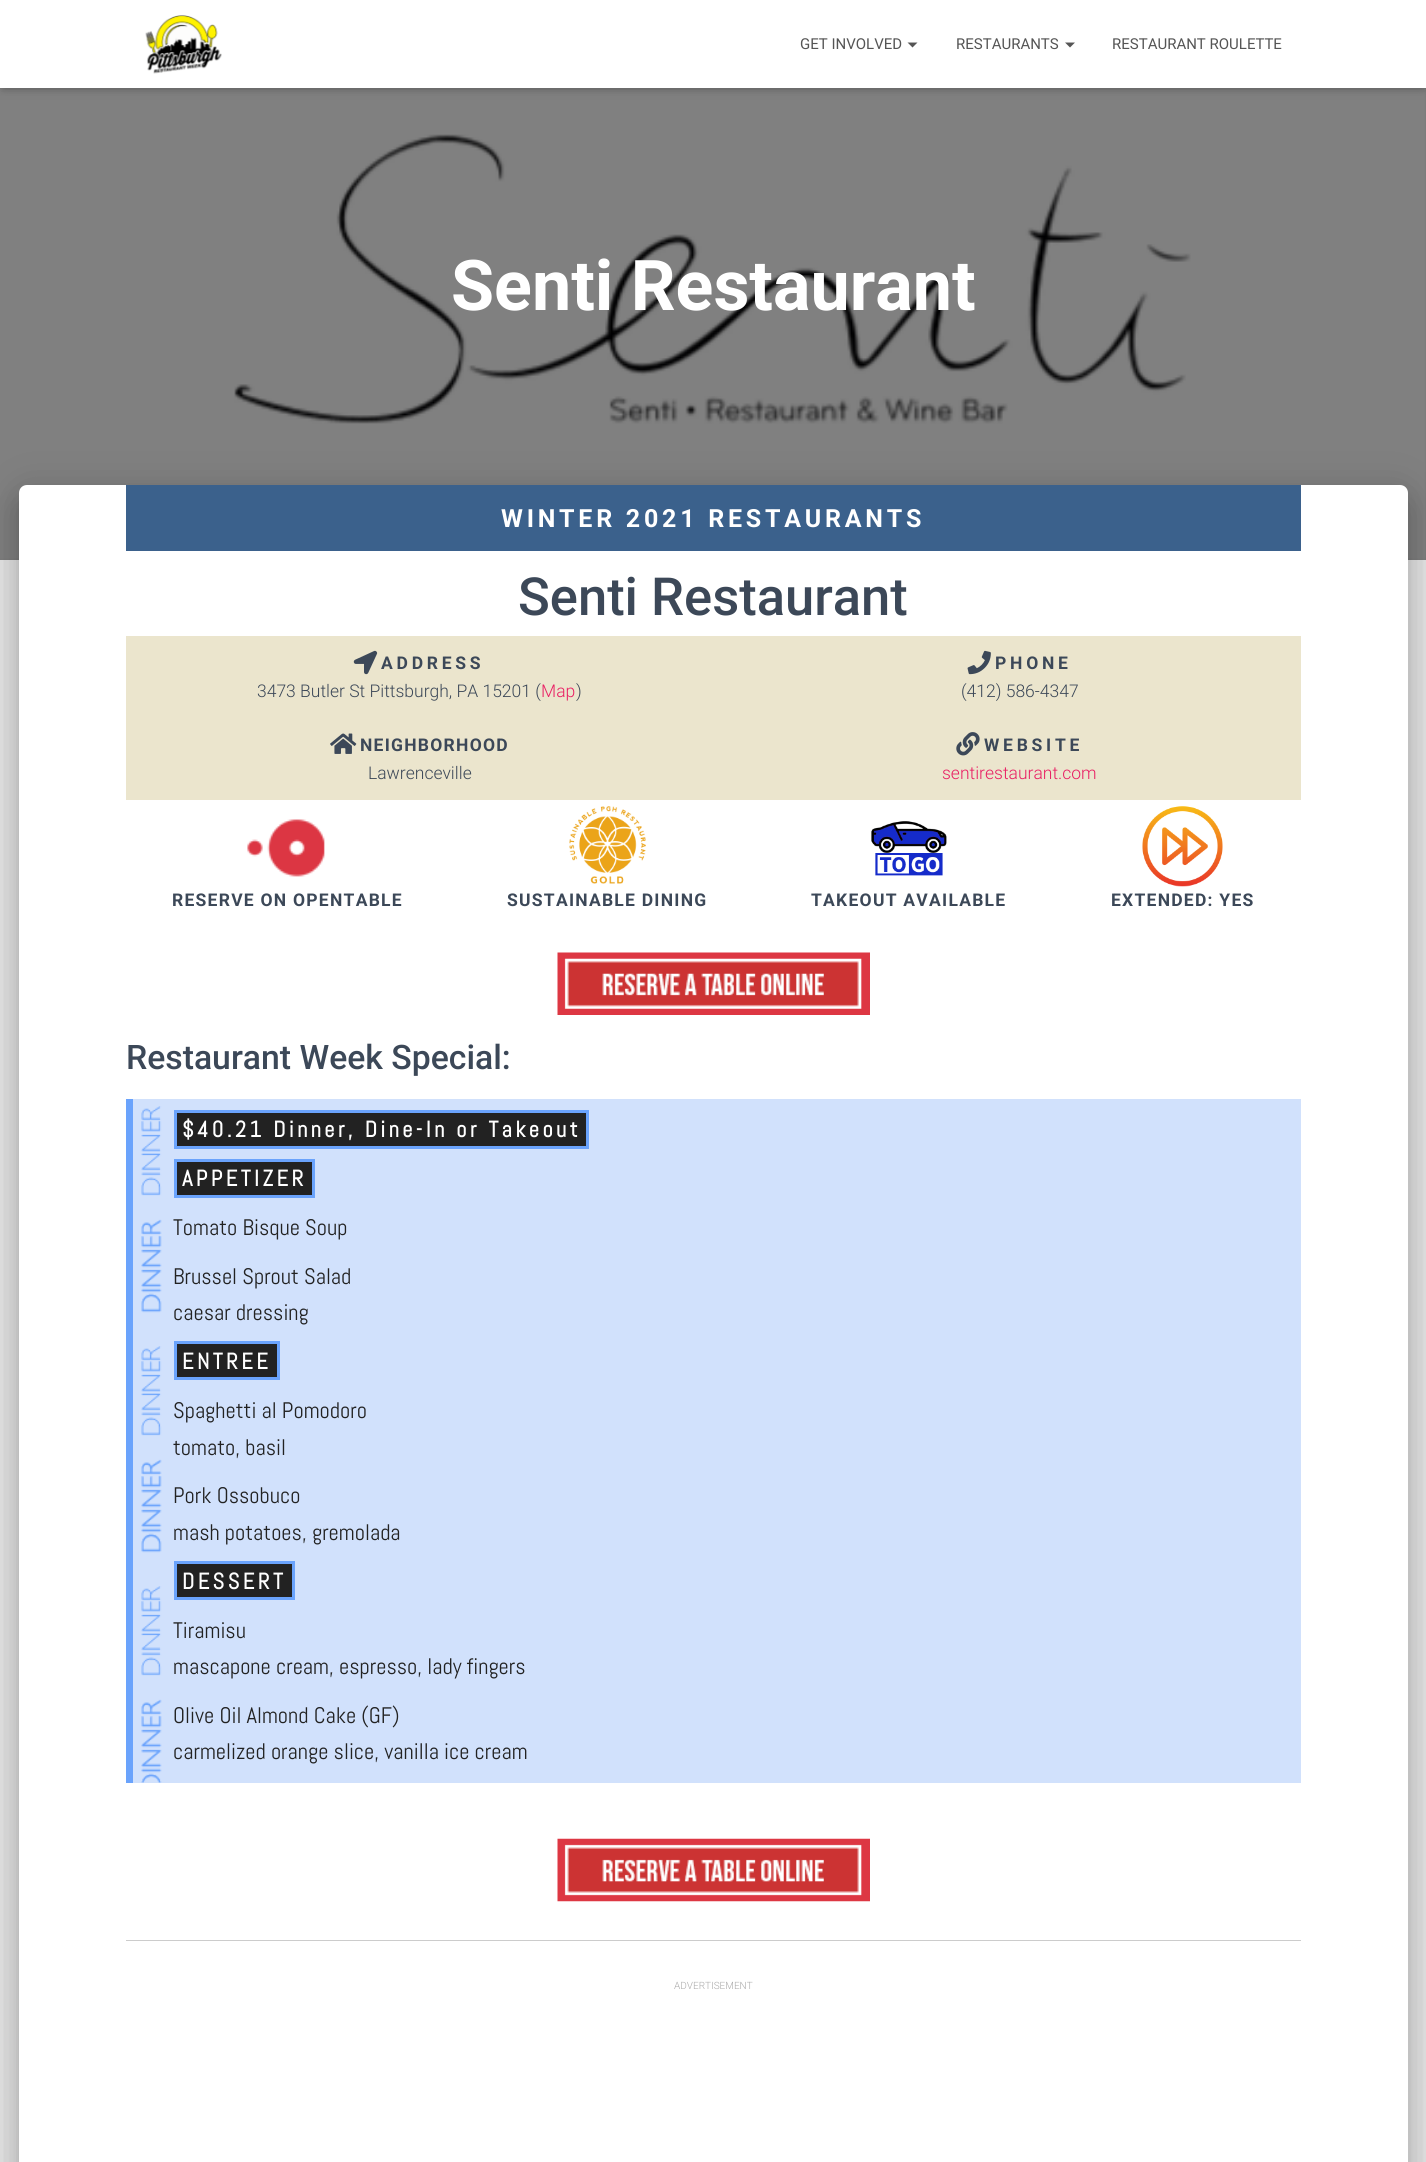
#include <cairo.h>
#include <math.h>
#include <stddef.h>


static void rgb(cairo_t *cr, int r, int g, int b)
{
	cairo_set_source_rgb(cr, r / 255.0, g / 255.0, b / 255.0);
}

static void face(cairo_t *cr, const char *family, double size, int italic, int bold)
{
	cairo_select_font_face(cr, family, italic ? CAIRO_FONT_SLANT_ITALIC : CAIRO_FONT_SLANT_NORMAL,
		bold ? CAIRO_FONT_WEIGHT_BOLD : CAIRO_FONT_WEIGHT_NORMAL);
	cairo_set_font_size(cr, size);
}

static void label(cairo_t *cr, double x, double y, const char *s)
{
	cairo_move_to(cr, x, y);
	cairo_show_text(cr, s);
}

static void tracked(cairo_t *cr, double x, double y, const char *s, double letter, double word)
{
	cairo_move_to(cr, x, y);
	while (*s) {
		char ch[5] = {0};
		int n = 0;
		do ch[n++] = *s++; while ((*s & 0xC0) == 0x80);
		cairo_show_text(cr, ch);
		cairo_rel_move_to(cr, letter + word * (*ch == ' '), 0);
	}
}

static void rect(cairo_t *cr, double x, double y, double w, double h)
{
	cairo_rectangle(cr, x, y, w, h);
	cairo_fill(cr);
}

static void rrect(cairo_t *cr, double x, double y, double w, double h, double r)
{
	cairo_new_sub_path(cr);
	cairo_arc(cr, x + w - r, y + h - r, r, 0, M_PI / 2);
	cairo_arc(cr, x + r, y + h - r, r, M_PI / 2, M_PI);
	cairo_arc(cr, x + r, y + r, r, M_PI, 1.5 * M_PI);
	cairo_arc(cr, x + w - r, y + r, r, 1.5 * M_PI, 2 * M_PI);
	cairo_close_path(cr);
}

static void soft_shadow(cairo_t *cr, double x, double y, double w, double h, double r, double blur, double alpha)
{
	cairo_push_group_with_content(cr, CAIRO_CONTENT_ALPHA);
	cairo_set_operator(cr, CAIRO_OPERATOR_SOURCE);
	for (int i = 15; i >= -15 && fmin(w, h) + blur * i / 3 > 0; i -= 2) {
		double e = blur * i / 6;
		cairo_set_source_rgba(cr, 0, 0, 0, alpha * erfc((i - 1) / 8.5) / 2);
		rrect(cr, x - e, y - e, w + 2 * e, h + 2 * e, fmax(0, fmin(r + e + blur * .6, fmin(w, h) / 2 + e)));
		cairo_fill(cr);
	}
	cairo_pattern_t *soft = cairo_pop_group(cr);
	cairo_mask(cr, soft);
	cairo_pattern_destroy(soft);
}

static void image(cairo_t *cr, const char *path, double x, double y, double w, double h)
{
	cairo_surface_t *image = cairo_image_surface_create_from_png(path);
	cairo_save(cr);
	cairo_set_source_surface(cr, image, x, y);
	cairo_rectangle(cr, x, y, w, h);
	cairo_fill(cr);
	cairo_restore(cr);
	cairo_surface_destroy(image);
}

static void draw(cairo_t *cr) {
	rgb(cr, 229, 229, 229);
	cairo_paint(cr);
	rgb(cr, 115, 115, 115);
	rect(cr, 0, 88, 1426, 472);
	image(cr, "image1.png", 0, 88, 1426, 472);
	rgb(cr, 0, 0, 0);
	soft_shadow(cr, 3, 8, 1421, 82, 0, 3, 0.1);
	soft_shadow(cr, 0, 1, 1426, 88, 0, 6, 0.12);
	soft_shadow(cr, 8, 9, 1411, 72, 0, 6, 0.42);
	rgb(cr, 255, 255, 255);
	rect(cr, 0, 0, 1426, 88);
	image(cr, "image0.png", 145, 15, 77, 59);
	face(cr, "Roboto", 15, 0, 0);
	rgb(cr, 85, 85, 85);
	label(cr, 800, 49, "GET INVOLVED");
	cairo_new_path(cr);
	cairo_move_to(cr, 907.5, 42.5);
	cairo_line_to(cr, 917.5, 42.5);
	cairo_line_to(cr, 912.5, 47.5);
	cairo_close_path(cr);
	cairo_fill(cr);
	label(cr, 956, 49, "RESTAURANTS");
	cairo_new_path(cr);
	cairo_move_to(cr, 1065, 42.5);
	cairo_line_to(cr, 1075, 42.5);
	cairo_line_to(cr, 1070, 47.5);
	cairo_close_path(cr);
	cairo_fill(cr);
	label(cr, 1112, 49, "RESTAURANT ROULETTE");
	face(cr, "Roboto", 70, 0, 1);
	rgb(cr, 255, 255, 255);
	label(cr, 451, 310, "Senti Restaurant");
	rgb(cr, 0, 0, 0);
	soft_shadow(cr, 25, 501, 1376, 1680, 1, 6, 0.2);
	soft_shadow(cr, 13, 486, 1401, 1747, 14, 19, 0.12);
	soft_shadow(cr, 16, 503, 1394, 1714, 10, 15, 0.14);
	rgb(cr, 255, 255, 255);
	cairo_new_path(cr);
	cairo_move_to(cr, 27, 485);
	cairo_line_to(cr, 1400, 485);
	cairo_curve_to(cr, 1404.5, 485, 1408, 488.5, 1408, 493);
	cairo_line_to(cr, 1408, 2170);
	cairo_line_to(cr, 19, 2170);
	cairo_line_to(cr, 19, 493);
	cairo_curve_to(cr, 19, 488.5, 22.5, 485, 27, 485);
	cairo_close_path(cr);
	cairo_fill(cr);
	rgb(cr, 59, 97, 140);
	rect(cr, 126, 485, 1175, 66);
	face(cr, "Roboto", 25, 0, 1);
	rgb(cr, 255, 255, 255);
	tracked(cr, 501, 527, "WINTER 2021 RESTAURANTS", 3.75, 0);
	face(cr, "Roboto Medium", 52.5, 0, 0);
	rgb(cr, 60, 72, 88);
	label(cr, 518, 615, "Senti Restaurant");
	rgb(cr, 235, 229, 205);
	rect(cr, 126, 636, 1175, 164);
	image(cr, "image2.png", 353, 650, 25, 25);
	face(cr, "Roboto", 17.5, 0, 1);
	rgb(cr, 60, 72, 88);
	tracked(cr, 381, 669, "ADDRESS", 3.75, 0);
	face(cr, "Roboto Light", 17.5, 0, 0);
	label(cr, 257, 697, "3473 Butler St Pittsburgh, PA 15201 (");
	rgb(cr, 233, 30, 99);
	label(cr, 541, 697, "Map");
	rgb(cr, 60, 72, 88);
	label(cr, 576, 697, ")");
	image(cr, "image3.png", 967, 650, 24, 25);
	face(cr, "Roboto", 17.5, 0, 1);
	tracked(cr, 995, 669, "PHONE", 3.75, 0);
	face(cr, "Roboto Light", 17.5, 0, 0);
	label(cr, 961, 697, "(412) 586-4347");
	image(cr, "image4.png", 330, 733, 27, 21);
	face(cr, "Roboto", 17.5, 0, 1);
	tracked(cr, 360, 751, "NEIGHBORHOOD", 1.25, 0);
	face(cr, "Roboto Light", 17.5, 0, 0);
	label(cr, 368, 779, "Lawrenceville");
	image(cr, "image5.png", 956, 732, 24, 24);
	face(cr, "Roboto", 17.5, 0, 1);
	tracked(cr, 984, 751, "WEBSITE", 3.75, 0);
	face(cr, "Roboto Light", 17.5, 0, 0);
	rgb(cr, 233, 30, 99);
	label(cr, 942, 779, "sentirestaurant.com");
	image(cr, "image6.png", 247, 819, 78, 58);
	face(cr, "Roboto", 17.5, 0, 1);
	rgb(cr, 60, 72, 88);
	tracked(cr, 172, 906, "RESERVE ON OPENTABLE", 1.25, 0);
	image(cr, "image7.png", 569, 806, 77, 78);
	tracked(cr, 507, 906, "SUSTAINABLE DINING", 1.25, 0);
	image(cr, "image8.png", 871, 821, 76, 55);
	tracked(cr, 811, 906, "TAKEOUT AVAILABLE", 1.25, 0);
	image(cr, "image9.png", 1142, 806, 81, 81);
	tracked(cr, 1111, 906, "EXTENDED: YES", 1.25, 0);
	image(cr, "image10.png", 557, 952, 313, 63);
	face(cr, "Roboto Medium", 33.75, 0, 0);
	label(cr, 126, 1069, "Restaurant Week Special:");
	rgb(cr, 209, 225, 252);
	rect(cr, 133, 1099, 1168, 684);
	image(cr, "image11.png", 141, 1106, 21, 677);
	rgb(cr, 106, 163, 252);
	rect(cr, 126, 1099, 7, 684);
	rgb(cr, 34, 34, 34);
	cairo_rectangle(cr, 175.5, 1111.5, 412, 36);
	cairo_fill_preserve(cr);
	rgb(cr, 106, 163, 252);
	cairo_set_line_width(cr, 3);
	cairo_stroke(cr);
	face(cr, "Abel", 22.5, 0, 1);
	rgb(cr, 255, 255, 255);
	tracked(cr, 182, 1137, "$40.21 Dinner, Dine-In or Takeout", 3.4, 0);
	rgb(cr, 34, 34, 34);
	cairo_rectangle(cr, 175.5, 1160.5, 138, 36);
	cairo_fill_preserve(cr);
	rgb(cr, 106, 163, 252);
	cairo_stroke(cr);
	rgb(cr, 255, 255, 255);
	tracked(cr, 182, 1186, "APPETIZER", 3.4, 0);
	face(cr, "Abel", 22.5, 0, 0);
	rgb(cr, 34, 34, 34);
	label(cr, 173, 1235, "Tomato Bisque Soup");
	label(cr, 173, 1284, "Brussel Sprout Salad");
	label(cr, 173, 1320, "caesar dressing");
	cairo_rectangle(cr, 175.5, 1342.5, 103, 36);
	cairo_fill_preserve(cr);
	rgb(cr, 106, 163, 252);
	cairo_stroke(cr);
	face(cr, "Abel", 22.5, 0, 1);
	rgb(cr, 255, 255, 255);
	tracked(cr, 182, 1369, "ENTREE", 3.4, 0);
	face(cr, "Abel", 22.5, 0, 0);
	rgb(cr, 34, 34, 34);
	label(cr, 173, 1418, "Spaghetti al Pomodoro");
	label(cr, 173, 1455, "tomato, basil");
	label(cr, 173, 1503, "Pork Ossobuco");
	label(cr, 173, 1540, "mash potatoes, gremolada");
	cairo_rectangle(cr, 175.5, 1562.5, 118, 36);
	cairo_fill_preserve(cr);
	rgb(cr, 106, 163, 252);
	cairo_stroke(cr);
	face(cr, "Abel", 22.5, 0, 1);
	rgb(cr, 255, 255, 255);
	tracked(cr, 182, 1589, "DESSERT", 3.4, 0);
	face(cr, "Abel", 22.5, 0, 0);
	rgb(cr, 34, 34, 34);
	label(cr, 173, 1638, "Tiramisu");
	label(cr, 173, 1674, "mascapone cream, espresso, lady fingers");
	label(cr, 173, 1723, "Olive Oil Almond Cake (GF)");
	label(cr, 173, 1759, "carmelized orange slice, vanilla ice cream");
	image(cr, "image12.png", 557, 1838, 313, 64);
	rgb(cr, 204, 204, 204);
	rect(cr, 126, 1940, 1175, 1);
	face(cr, "Roboto Light", 10, 0, 0);
	rgb(cr, 170, 170, 170);
	label(cr, 674, 1989, "ADVERTISEMENT");
}

int main(void) {
	cairo_surface_t *surface = cairo_image_surface_create(CAIRO_FORMAT_RGB24, 1426, 2162);
	cairo_t *cr = cairo_create(surface);
	cairo_font_options_t *options = cairo_font_options_create();
	cairo_font_options_set_hint_metrics(options, CAIRO_HINT_METRICS_OFF);
	cairo_font_options_set_hint_style(options, CAIRO_HINT_STYLE_NONE);
	cairo_set_font_options(cr, options);
	cairo_set_miter_limit(cr, 4);
	draw(cr);
	cairo_surface_write_to_png(surface, "render.png");
	cairo_font_options_destroy(options);
	cairo_destroy(cr);
	cairo_surface_destroy(surface);
	return 0;
}
